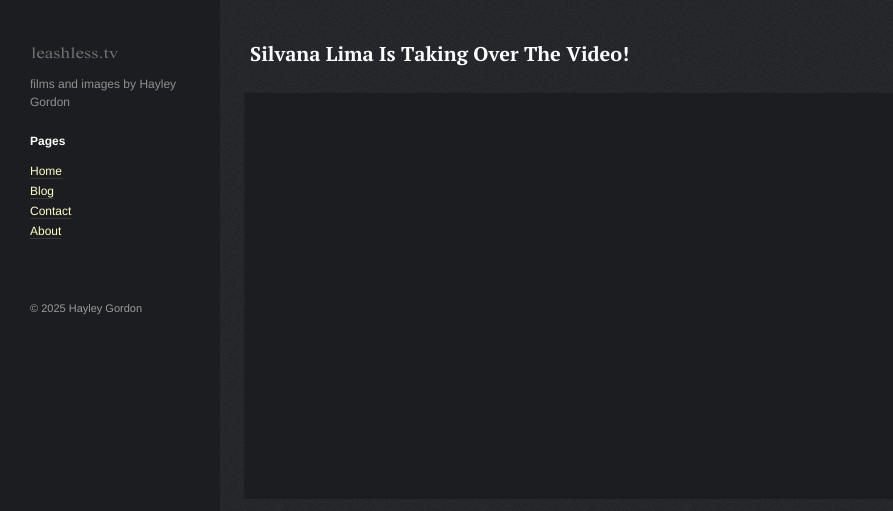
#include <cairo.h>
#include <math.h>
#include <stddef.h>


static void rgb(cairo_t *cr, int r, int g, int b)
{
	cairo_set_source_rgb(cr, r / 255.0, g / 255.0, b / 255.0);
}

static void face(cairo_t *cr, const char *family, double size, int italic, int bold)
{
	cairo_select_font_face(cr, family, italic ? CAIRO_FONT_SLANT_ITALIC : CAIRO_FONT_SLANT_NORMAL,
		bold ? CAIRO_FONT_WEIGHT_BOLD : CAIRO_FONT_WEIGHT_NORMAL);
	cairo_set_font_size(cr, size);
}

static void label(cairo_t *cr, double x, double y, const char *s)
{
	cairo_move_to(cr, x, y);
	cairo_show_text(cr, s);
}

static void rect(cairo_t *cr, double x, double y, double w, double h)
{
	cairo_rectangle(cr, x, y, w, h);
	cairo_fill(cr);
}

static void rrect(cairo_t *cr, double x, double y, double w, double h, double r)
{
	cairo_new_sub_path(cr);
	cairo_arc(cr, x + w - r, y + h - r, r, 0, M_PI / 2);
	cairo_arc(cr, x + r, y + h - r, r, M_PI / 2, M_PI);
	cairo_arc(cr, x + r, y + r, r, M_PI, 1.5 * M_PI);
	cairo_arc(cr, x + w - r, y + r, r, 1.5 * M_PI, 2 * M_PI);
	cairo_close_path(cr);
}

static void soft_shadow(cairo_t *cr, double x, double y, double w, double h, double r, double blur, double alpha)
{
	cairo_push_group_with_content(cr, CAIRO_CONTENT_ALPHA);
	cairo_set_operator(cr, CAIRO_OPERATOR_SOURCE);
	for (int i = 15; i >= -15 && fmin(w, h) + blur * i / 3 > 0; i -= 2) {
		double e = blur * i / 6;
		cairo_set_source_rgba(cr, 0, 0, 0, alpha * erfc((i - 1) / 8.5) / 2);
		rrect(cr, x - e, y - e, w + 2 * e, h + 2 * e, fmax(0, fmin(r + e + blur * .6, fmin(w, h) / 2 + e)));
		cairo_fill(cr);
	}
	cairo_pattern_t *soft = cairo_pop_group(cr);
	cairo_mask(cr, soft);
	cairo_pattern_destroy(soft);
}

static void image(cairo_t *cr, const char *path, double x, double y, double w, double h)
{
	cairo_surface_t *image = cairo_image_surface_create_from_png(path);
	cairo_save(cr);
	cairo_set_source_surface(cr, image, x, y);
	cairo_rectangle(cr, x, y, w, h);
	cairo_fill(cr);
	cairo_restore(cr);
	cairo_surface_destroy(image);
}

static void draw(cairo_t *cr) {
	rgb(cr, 255, 255, 255);
	cairo_paint(cr);
	image(cr, "image0.png", 0, 0, 893, 511);
	face(cr, "PT Serif", 20, 0, 1);
	rgb(cr, 251, 252, 252);
	label(cr, 250, 61, "Silvana Lima Is Taking Over The Video!");
	rgb(cr, 0, 0, 0);
	soft_shadow(cr, 245, 94, 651, 404, 0, 1, 0.5);
	rgb(cr, 28, 29, 33);
	rect(cr, 245, 93, 648, 404);
	image(cr, "image1.png", 31, 47, 87, 12);
	face(cr, "Liberation Sans", 12, 0, 0);
	rgb(cr, 141, 143, 143);
	label(cr, 30, 88, "films and images by Hayley");
	label(cr, 30, 106, "Gordon");
	face(cr, "Liberation Sans", 12, 0, 1);
	rgb(cr, 251, 252, 252);
	label(cr, 30, 145, "Pages");
	face(cr, "Liberation Sans", 12, 0, 0);
	rgb(cr, 255, 255, 194);
	label(cr, 30, 175, "Home");
	rgb(cr, 54, 56, 65);
	rect(cr, 30, 178, 32, 1);
	rgb(cr, 255, 255, 194);
	label(cr, 30, 195, "Blog");
	rgb(cr, 54, 56, 65);
	rect(cr, 30, 198, 24, 1);
	rgb(cr, 255, 255, 194);
	label(cr, 30, 215, "Contact");
	rgb(cr, 54, 56, 65);
	rect(cr, 30, 218, 41, 1);
	rgb(cr, 255, 255, 194);
	label(cr, 30, 235, "About");
	rgb(cr, 54, 56, 65);
	rect(cr, 30, 238, 31, 1);
	face(cr, "Liberation Sans", 11, 0, 0);
	rgb(cr, 153, 153, 153);
	label(cr, 30, 312, "© 2025 Hayley Gordon");
}

int main(void) {
	cairo_surface_t *surface = cairo_image_surface_create(CAIRO_FORMAT_RGB24, 893, 511);
	cairo_t *cr = cairo_create(surface);
	cairo_font_options_t *options = cairo_font_options_create();
	cairo_font_options_set_hint_metrics(options, CAIRO_HINT_METRICS_OFF);
	cairo_font_options_set_hint_style(options, CAIRO_HINT_STYLE_NONE);
	cairo_set_font_options(cr, options);
	cairo_set_miter_limit(cr, 4);
	draw(cr);
	cairo_surface_write_to_png(surface, "render.png");
	cairo_font_options_destroy(options);
	cairo_destroy(cr);
	cairo_surface_destroy(surface);
	return 0;
}
